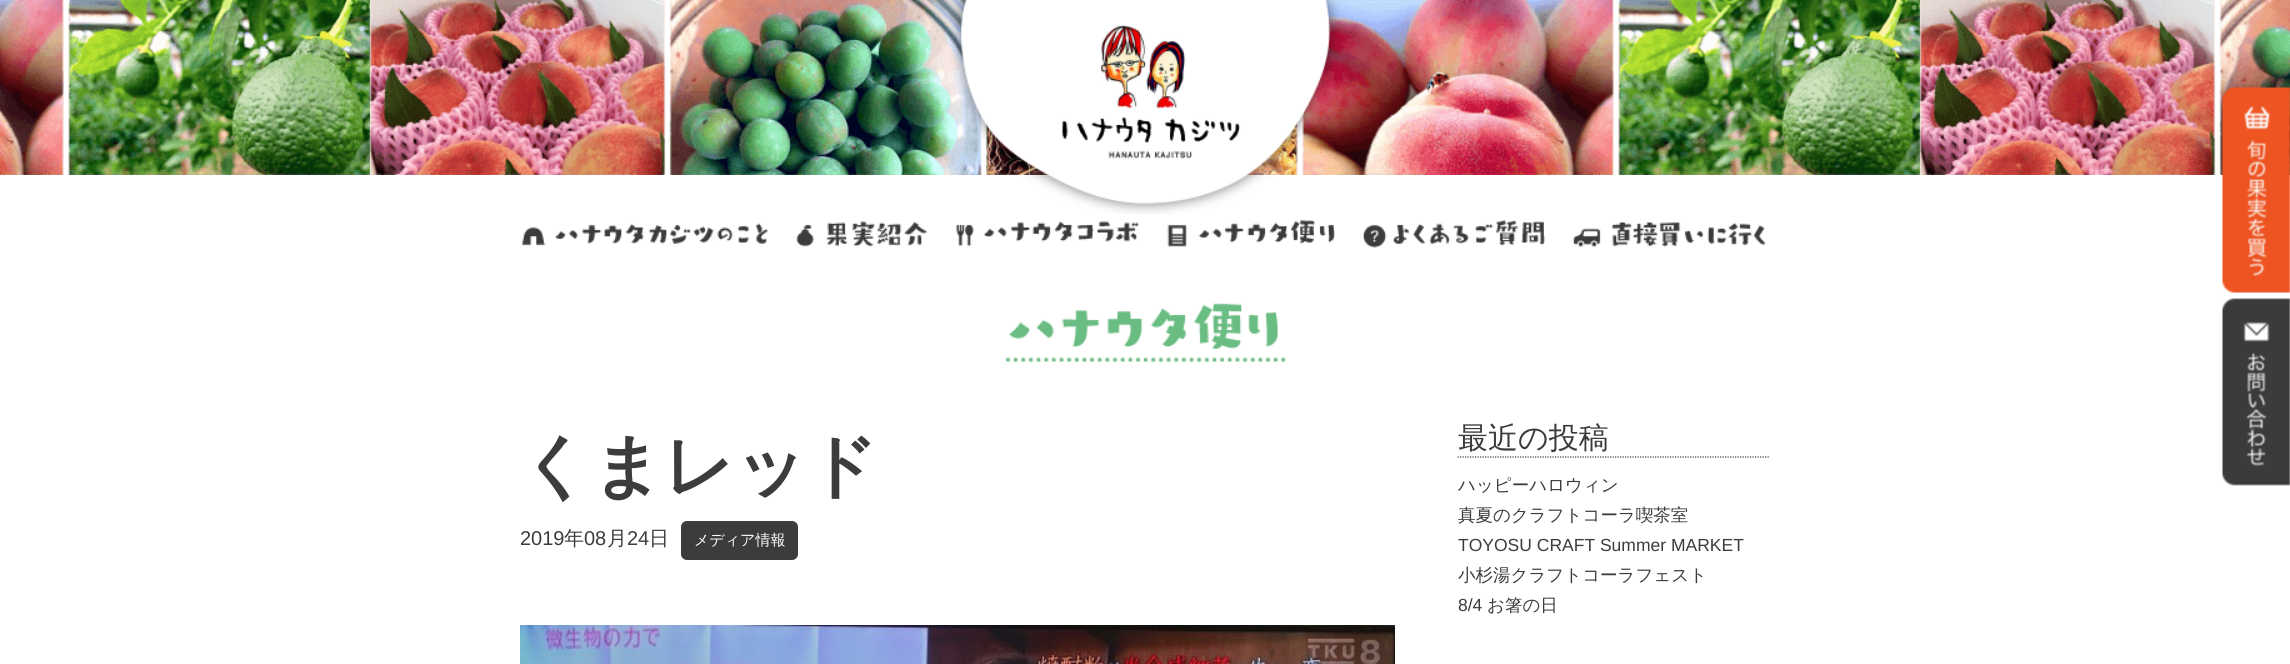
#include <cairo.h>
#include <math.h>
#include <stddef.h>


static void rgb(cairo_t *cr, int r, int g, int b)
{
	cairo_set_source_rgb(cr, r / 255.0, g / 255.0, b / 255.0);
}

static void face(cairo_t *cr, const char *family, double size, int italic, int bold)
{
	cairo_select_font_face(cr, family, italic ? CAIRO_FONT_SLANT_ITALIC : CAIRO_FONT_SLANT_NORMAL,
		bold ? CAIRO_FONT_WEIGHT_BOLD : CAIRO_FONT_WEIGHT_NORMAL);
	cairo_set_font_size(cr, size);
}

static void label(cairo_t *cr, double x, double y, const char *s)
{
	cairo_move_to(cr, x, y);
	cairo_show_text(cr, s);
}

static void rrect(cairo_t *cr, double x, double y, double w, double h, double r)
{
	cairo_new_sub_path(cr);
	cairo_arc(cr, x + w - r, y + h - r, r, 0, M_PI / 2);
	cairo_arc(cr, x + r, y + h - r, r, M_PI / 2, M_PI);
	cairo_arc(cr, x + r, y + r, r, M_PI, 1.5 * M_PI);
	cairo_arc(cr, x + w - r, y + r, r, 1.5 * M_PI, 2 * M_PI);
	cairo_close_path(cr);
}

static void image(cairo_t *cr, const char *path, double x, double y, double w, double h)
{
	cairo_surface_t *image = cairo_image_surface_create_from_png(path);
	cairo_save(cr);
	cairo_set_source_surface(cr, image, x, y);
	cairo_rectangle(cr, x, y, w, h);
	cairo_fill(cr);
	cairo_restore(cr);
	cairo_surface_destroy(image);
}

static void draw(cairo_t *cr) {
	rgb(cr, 255, 255, 255);
	cairo_paint(cr);
	image(cr, "image0.png", 0, 0, 2290, 175);
	image(cr, "image1.png", 950, 0, 391, 214);
	image(cr, "image2.png", 522, 223, 246, 23);
	image(cr, "image3.png", 796, 221, 132, 26);
	image(cr, "image4.png", 956, 221, 183, 26);
	image(cr, "image5.png", 1167, 220, 168, 27);
	image(cr, "image6.png", 1363, 220, 182, 28);
	image(cr, "image7.png", 1573, 222, 193, 26);
	image(cr, "image8.png", 2222, 87, 68, 206);
	image(cr, "image9.png", 2222, 298, 68, 188);
	image(cr, "image10.png", 1005, 303, 282, 60);
	face(cr, "WenQuanYi Zen Hei", 70, 0, 1);
	rgb(cr, 60, 60, 60);
	label(cr, 520, 490, "くまレッド");
	face(cr, "Liberation Sans", 20, 0, 0);
	label(cr, 520, 545, "2019");
	face(cr, "WenQuanYi Zen Hei Medium", 20, 0, 0);
	label(cr, 564, 545, "年");
	face(cr, "Liberation Sans", 20, 0, 0);
	label(cr, 584, 545, "08");
	face(cr, "WenQuanYi Zen Hei Medium", 20, 0, 0);
	label(cr, 607, 545, "月");
	face(cr, "Liberation Sans", 20, 0, 0);
	label(cr, 627, 545, "24");
	face(cr, "WenQuanYi Zen Hei Medium", 20, 0, 0);
	label(cr, 649, 545, "日");
	rrect(cr, 681, 521, 117, 39, 6);
	cairo_fill(cr);
	face(cr, "WenQuanYi Zen Hei Medium", 15, 0, 0);
	rgb(cr, 255, 255, 255);
	label(cr, 694, 545, "メディア情報");
	image(cr, "image11.png", 520, 625, 875, 39);
	cairo_new_path(cr);
	cairo_move_to(cr, 1457.5, 457);
	cairo_line_to(cr, 1770, 457);
	rgb(cr, 60, 60, 60);
	cairo_set_line_width(cr, 1.2);
	cairo_set_dash(cr, (double[]){1.25, 1.25}, 2, 0);
	cairo_stroke(cr);
	face(cr, "WenQuanYi Zen Hei Medium", 30, 0, 0);
	label(cr, 1458, 448, "最近の投稿");
	face(cr, "WenQuanYi Zen Hei Medium", 17.5, 0, 0);
	label(cr, 1458, 491, "ハッピーハロウィン");
	label(cr, 1458, 521, "真夏のクラフトコーラ喫茶室");
	face(cr, "Liberation Sans", 17.5, 0, 0);
	label(cr, 1458, 551, "TOYOSU CRAFT Summer MARKET");
	face(cr, "WenQuanYi Zen Hei Medium", 17.5, 0, 0);
	label(cr, 1458, 581, "小杉湯クラフトコーラフェスト");
	face(cr, "Liberation Sans", 17.5, 0, 0);
	label(cr, 1458, 611, "8/4");
	face(cr, "WenQuanYi Zen Hei Medium", 17.5, 0, 0);
	label(cr, 1487, 611, "お箸の日");
}

int main(void) {
	cairo_surface_t *surface = cairo_image_surface_create(CAIRO_FORMAT_RGB24, 2290, 664);
	cairo_t *cr = cairo_create(surface);
	cairo_font_options_t *options = cairo_font_options_create();
	cairo_font_options_set_hint_metrics(options, CAIRO_HINT_METRICS_OFF);
	cairo_font_options_set_hint_style(options, CAIRO_HINT_STYLE_NONE);
	cairo_set_font_options(cr, options);
	cairo_set_miter_limit(cr, 4);
	draw(cr);
	cairo_surface_write_to_png(surface, "render.png");
	cairo_font_options_destroy(options);
	cairo_destroy(cr);
	cairo_surface_destroy(surface);
	return 0;
}
